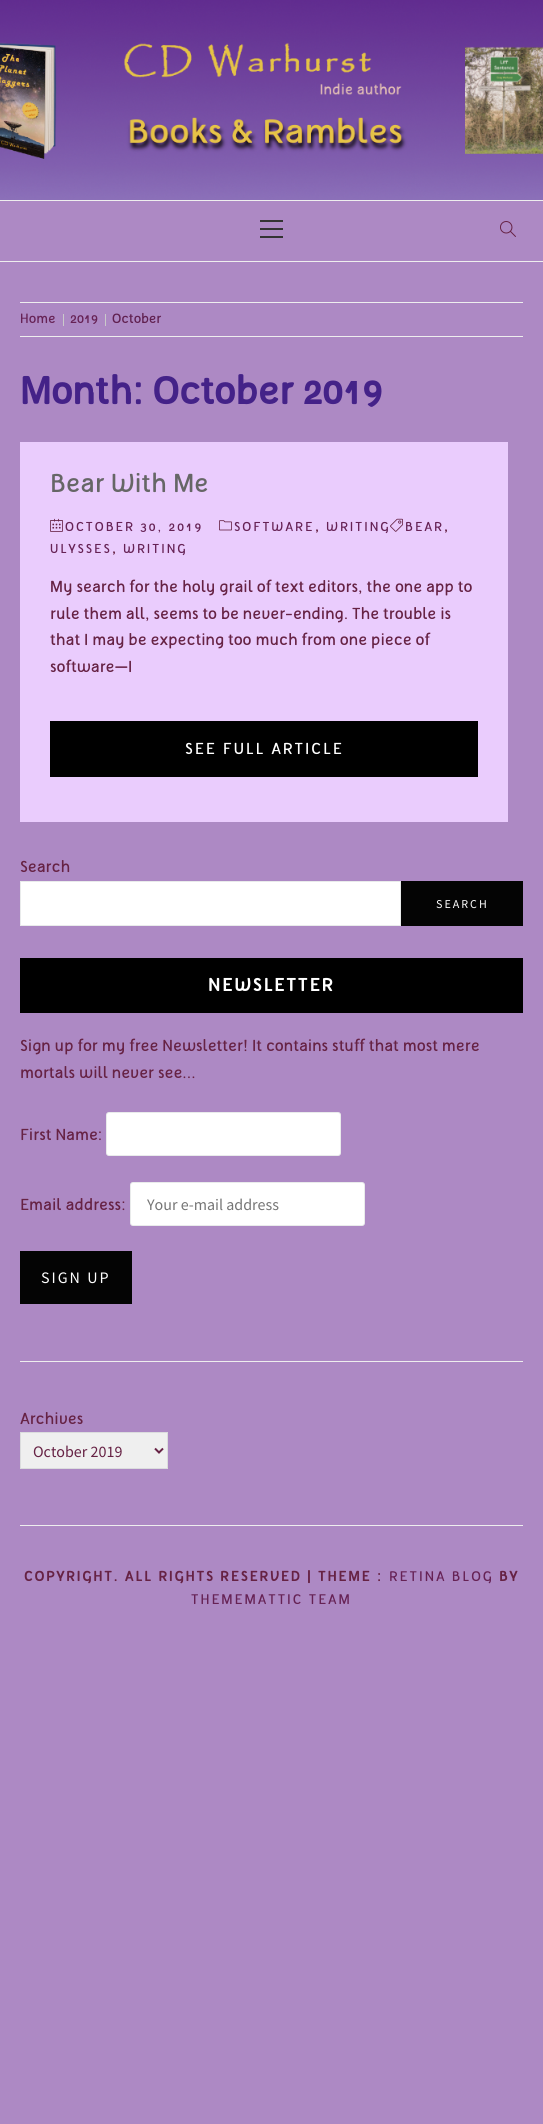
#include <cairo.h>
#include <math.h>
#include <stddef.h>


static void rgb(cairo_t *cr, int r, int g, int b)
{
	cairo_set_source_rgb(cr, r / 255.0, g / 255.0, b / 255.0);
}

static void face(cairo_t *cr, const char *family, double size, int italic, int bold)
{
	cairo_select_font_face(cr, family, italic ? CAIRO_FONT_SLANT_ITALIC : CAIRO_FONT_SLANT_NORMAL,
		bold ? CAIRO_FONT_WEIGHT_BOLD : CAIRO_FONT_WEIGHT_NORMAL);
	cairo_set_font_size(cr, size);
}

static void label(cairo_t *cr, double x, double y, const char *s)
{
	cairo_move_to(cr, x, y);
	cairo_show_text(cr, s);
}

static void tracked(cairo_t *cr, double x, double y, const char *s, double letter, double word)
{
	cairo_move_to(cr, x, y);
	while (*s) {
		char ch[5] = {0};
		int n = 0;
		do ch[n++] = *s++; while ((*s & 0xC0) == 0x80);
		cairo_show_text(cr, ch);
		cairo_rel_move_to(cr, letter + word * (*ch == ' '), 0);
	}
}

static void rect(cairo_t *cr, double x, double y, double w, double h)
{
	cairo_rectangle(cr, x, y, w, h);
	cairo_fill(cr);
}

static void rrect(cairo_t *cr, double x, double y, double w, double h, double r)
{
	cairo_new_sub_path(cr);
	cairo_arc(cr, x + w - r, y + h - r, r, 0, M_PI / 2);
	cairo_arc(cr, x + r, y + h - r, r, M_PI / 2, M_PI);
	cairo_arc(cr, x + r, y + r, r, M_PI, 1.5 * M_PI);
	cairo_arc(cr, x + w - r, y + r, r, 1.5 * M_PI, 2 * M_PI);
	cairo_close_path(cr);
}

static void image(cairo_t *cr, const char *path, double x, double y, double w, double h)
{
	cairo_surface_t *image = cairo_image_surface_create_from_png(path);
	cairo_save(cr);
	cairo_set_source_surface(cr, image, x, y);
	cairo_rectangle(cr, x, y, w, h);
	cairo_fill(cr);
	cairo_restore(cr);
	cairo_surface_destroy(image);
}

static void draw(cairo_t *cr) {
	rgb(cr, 173, 137, 196);
	cairo_paint(cr);
	image(cr, "image0.png", 0, 0, 543, 200);
	rgb(cr, 238, 238, 238);
	rect(cr, 0, 200, 543, 1);
	rect(cr, 0, 261, 543, 1);
	rgb(cr, 51, 51, 51);
	rect(cr, 260, 228, 23, 2);
	rect(cr, 260, 220, 23, 2);
	rect(cr, 260, 236, 23, 2);
	image(cr, "image1.png", 500, 221, 16, 16);
	rgb(cr, 238, 238, 238);
	rect(cr, 20, 302, 503, 1);
	rect(cr, 20, 336, 503, 1);
	face(cr, "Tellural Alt", 13.5, 0, 0);
	rgb(cr, 102, 34, 85);
	label(cr, 20, 323, "Home");
	rgb(cr, 202, 202, 202);
	rect(cr, 63, 314, 1, 12);
	rgb(cr, 102, 34, 85);
	label(cr, 70, 323, "2019");
	rgb(cr, 202, 202, 202);
	rect(cr, 105, 314, 1, 12);
	rgb(cr, 96, 32, 80);
	label(cr, 112, 323, "October");
	face(cr, "Tellural Alt", 38.5, 0, 1);
	rgb(cr, 68, 34, 136);
	label(cr, 20, 404, "Month: October 2019");
	rgb(cr, 234, 204, 253);
	rect(cr, 20, 442, 488, 380);
	face(cr, "Tellural Alt", 26, 0, 0);
	rgb(cr, 102, 102, 102);
	label(cr, 50, 492, "Bear With Me");
	image(cr, "image2.png", 50, 518, 13, 14);
	face(cr, "Tellural Alt", 13, 0, 0);
	rgb(cr, 102, 34, 85);
	tracked(cr, 65, 531, "OCTOBER 30, 2019", 2, 0);
	image(cr, "image3.png", 219, 520, 13, 11);
	tracked(cr, 234, 531, "SOFTWARE", 2, 0);
	face(cr, "Tellural Alt", 13, 0, 1);
	rgb(cr, 102, 34, 68);
	tracked(cr, 315, 531, ",", 2, 0);
	face(cr, "Tellural Alt", 13, 0, 0);
	rgb(cr, 102, 34, 85);
	tracked(cr, 326, 531, "WRITING", 2, 0);
	image(cr, "image4.png", 390, 518, 13, 14);
	tracked(cr, 405, 531, "BEAR", 2, 0);
	face(cr, "Tellural Alt", 13, 0, 1);
	rgb(cr, 102, 34, 68);
	tracked(cr, 444, 531, ",", 2, 0);
	face(cr, "Tellural Alt", 13, 0, 0);
	rgb(cr, 102, 34, 85);
	tracked(cr, 50, 553, "ULYSSES", 2, 0);
	face(cr, "Tellural Alt", 13, 0, 1);
	rgb(cr, 102, 34, 68);
	tracked(cr, 112, 553, ",", 2, 0);
	face(cr, "Tellural Alt", 13, 0, 0);
	rgb(cr, 102, 34, 85);
	tracked(cr, 123, 553, "WRITING", 2, 0);
	face(cr, "Tellural Alt", 16, 0, 0);
	rgb(cr, 102, 34, 68);
	label(cr, 50, 592, "My search for the holy grail of text editors, the one app to");
	label(cr, 50, 619, "rule them all, seems to be never-ending. The trouble is");
	label(cr, 50, 645, "that I may be expecting too much from one piece of");
	label(cr, 50, 672, "software—I");
	rgb(cr, 0, 0, 0);
	rect(cr, 50, 721, 428, 56);
	rgb(cr, 255, 255, 255);
	tracked(cr, 185, 754, "SEE FULL ARTICLE", 2, 0);
	rgb(cr, 102, 34, 68);
	label(cr, 20, 872, "Search");
	rgb(cr, 255, 255, 255);
	cairo_rectangle(cr, 20.5, 881.5, 380, 44);
	cairo_fill_preserve(cr);
	rgb(cr, 233, 235, 235);
	cairo_set_line_width(cr, 1);
	cairo_stroke(cr);
	rgb(cr, 4, 4, 4);
	rect(cr, 401, 881, 122, 45);
	face(cr, "Source Sans Pro", 12, 0, 0);
	rgb(cr, 255, 255, 255);
	tracked(cr, 436, 908, "SEARCH", 2, 0);
	rgb(cr, 0, 0, 0);
	rect(cr, 20, 958, 503, 55);
	face(cr, "Tellural Alt", 18, 0, 1);
	rgb(cr, 255, 255, 255);
	tracked(cr, 208, 991, "NEWSLETTER", 2, 0);
	face(cr, "Tellural Alt", 16, 0, 0);
	rgb(cr, 102, 34, 68);
	label(cr, 20, 1051, "Sign up for my free Newsletter! It contains stuff that most mere");
	label(cr, 20, 1078, "mortals will never see...");
	label(cr, 20, 1140, "First Name:");
	rgb(cr, 255, 255, 255);
	rrect(cr, 106, 1112, 235, 44, 3);
	cairo_fill(cr);
	rrect(cr, 106.5, 1112.5, 234, 43, 2.5);
	cairo_set_source_rgba(cr, 0.149, 0.196, 0.22, 0.1);
	cairo_stroke(cr);
	rgb(cr, 102, 34, 68);
	label(cr, 20, 1210, "Email address:");
	rgb(cr, 255, 255, 255);
	rrect(cr, 130, 1182, 235, 44, 3);
	cairo_fill(cr);
	rrect(cr, 130.5, 1182.5, 234, 43, 2.5);
	cairo_set_source_rgba(cr, 0.149, 0.196, 0.22, 0.1);
	cairo_stroke(cr);
	face(cr, "Source Sans Pro", 16, 0, 0);
	rgb(cr, 117, 117, 117);
	label(cr, 147, 1210, "Your e-mail address");
	rgb(cr, 4, 4, 4);
	rect(cr, 20, 1251, 112, 53);
	rgb(cr, 255, 255, 255);
	tracked(cr, 41, 1283, "SIGN UP", 2, 0);
	rgb(cr, 238, 238, 238);
	rect(cr, 20, 1361, 503, 1);
	face(cr, "Tellural Alt", 16, 0, 0);
	rgb(cr, 102, 34, 68);
	label(cr, 20, 1424, "Archives");
	rgb(cr, 239, 239, 239);
	cairo_rectangle(cr, 20.5, 1432.5, 147, 36);
	cairo_fill_preserve(cr);
	rgb(cr, 219, 220, 221);
	cairo_stroke(cr);
	cairo_new_path(cr);
	cairo_move_to(cr, 155, 1448.5);
	cairo_line_to(cr, 159, 1452.5);
	cairo_line_to(cr, 163, 1448.5);
	rgb(cr, 102, 34, 68);
	cairo_set_line_width(cr, 2);
	cairo_stroke(cr);
	face(cr, "Source Sans Pro", 16, 0, 0);
	label(cr, 33, 1457, "October 2019");
	rgb(cr, 238, 238, 238);
	rect(cr, 20, 1525, 503, 1);
	face(cr, "Tellural Alt", 14, 0, 1);
	rgb(cr, 102, 34, 68);
	tracked(cr, 24, 1581, "COPYRIGHT. ALL RIGHTS RESERVED | THEME :", 2, 0);
	face(cr, "Tellural Alt", 14, 0, 0);
	rgb(cr, 102, 34, 85);
	tracked(cr, 389, 1581, "RETINA BLOG", 2, 0);
	face(cr, "Tellural Alt", 14, 0, 1);
	rgb(cr, 102, 34, 68);
	tracked(cr, 499, 1581, "BY", 2, 0);
	face(cr, "Tellural Alt", 14, 0, 0);
	rgb(cr, 102, 34, 85);
	tracked(cr, 191, 1604, "THEMEMATTIC TEAM", 2, 0);
}

int main(void) {
	cairo_surface_t *surface = cairo_image_surface_create(CAIRO_FORMAT_RGB24, 543, 2124);
	cairo_t *cr = cairo_create(surface);
	cairo_font_options_t *options = cairo_font_options_create();
	cairo_font_options_set_hint_metrics(options, CAIRO_HINT_METRICS_OFF);
	cairo_font_options_set_hint_style(options, CAIRO_HINT_STYLE_NONE);
	cairo_set_font_options(cr, options);
	cairo_set_miter_limit(cr, 4);
	draw(cr);
	cairo_surface_write_to_png(surface, "render.png");
	cairo_font_options_destroy(options);
	cairo_destroy(cr);
	cairo_surface_destroy(surface);
	return 0;
}
